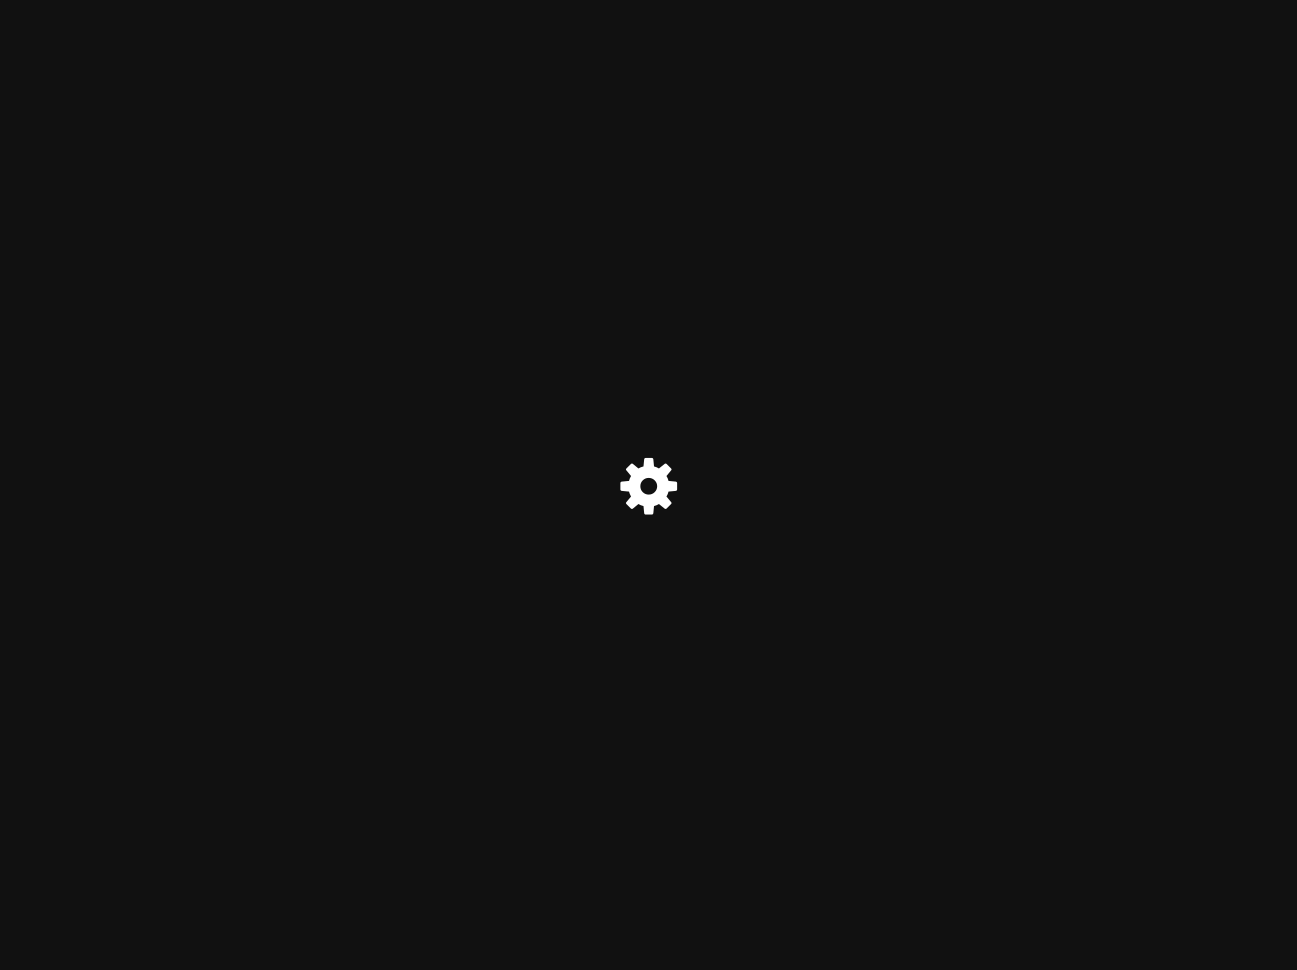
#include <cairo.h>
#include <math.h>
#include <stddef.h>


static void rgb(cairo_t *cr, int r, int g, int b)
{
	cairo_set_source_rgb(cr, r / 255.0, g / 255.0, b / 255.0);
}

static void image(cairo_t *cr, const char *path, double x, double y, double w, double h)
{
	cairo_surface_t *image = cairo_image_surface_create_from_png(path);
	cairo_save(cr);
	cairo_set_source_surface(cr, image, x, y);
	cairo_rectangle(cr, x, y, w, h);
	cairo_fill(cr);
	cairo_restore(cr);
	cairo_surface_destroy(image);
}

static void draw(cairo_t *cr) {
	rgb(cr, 17, 17, 17);
	cairo_paint(cr);
	image(cr, "image0.png", 620, 457, 58, 58);
}

int main(void) {
	cairo_surface_t *surface = cairo_image_surface_create(CAIRO_FORMAT_RGB24, 1297, 970);
	cairo_t *cr = cairo_create(surface);
	cairo_font_options_t *options = cairo_font_options_create();
	cairo_font_options_set_hint_metrics(options, CAIRO_HINT_METRICS_OFF);
	cairo_font_options_set_hint_style(options, CAIRO_HINT_STYLE_NONE);
	cairo_set_font_options(cr, options);
	cairo_set_miter_limit(cr, 4);
	draw(cr);
	cairo_surface_write_to_png(surface, "render.png");
	cairo_font_options_destroy(options);
	cairo_destroy(cr);
	cairo_surface_destroy(surface);
	return 0;
}
